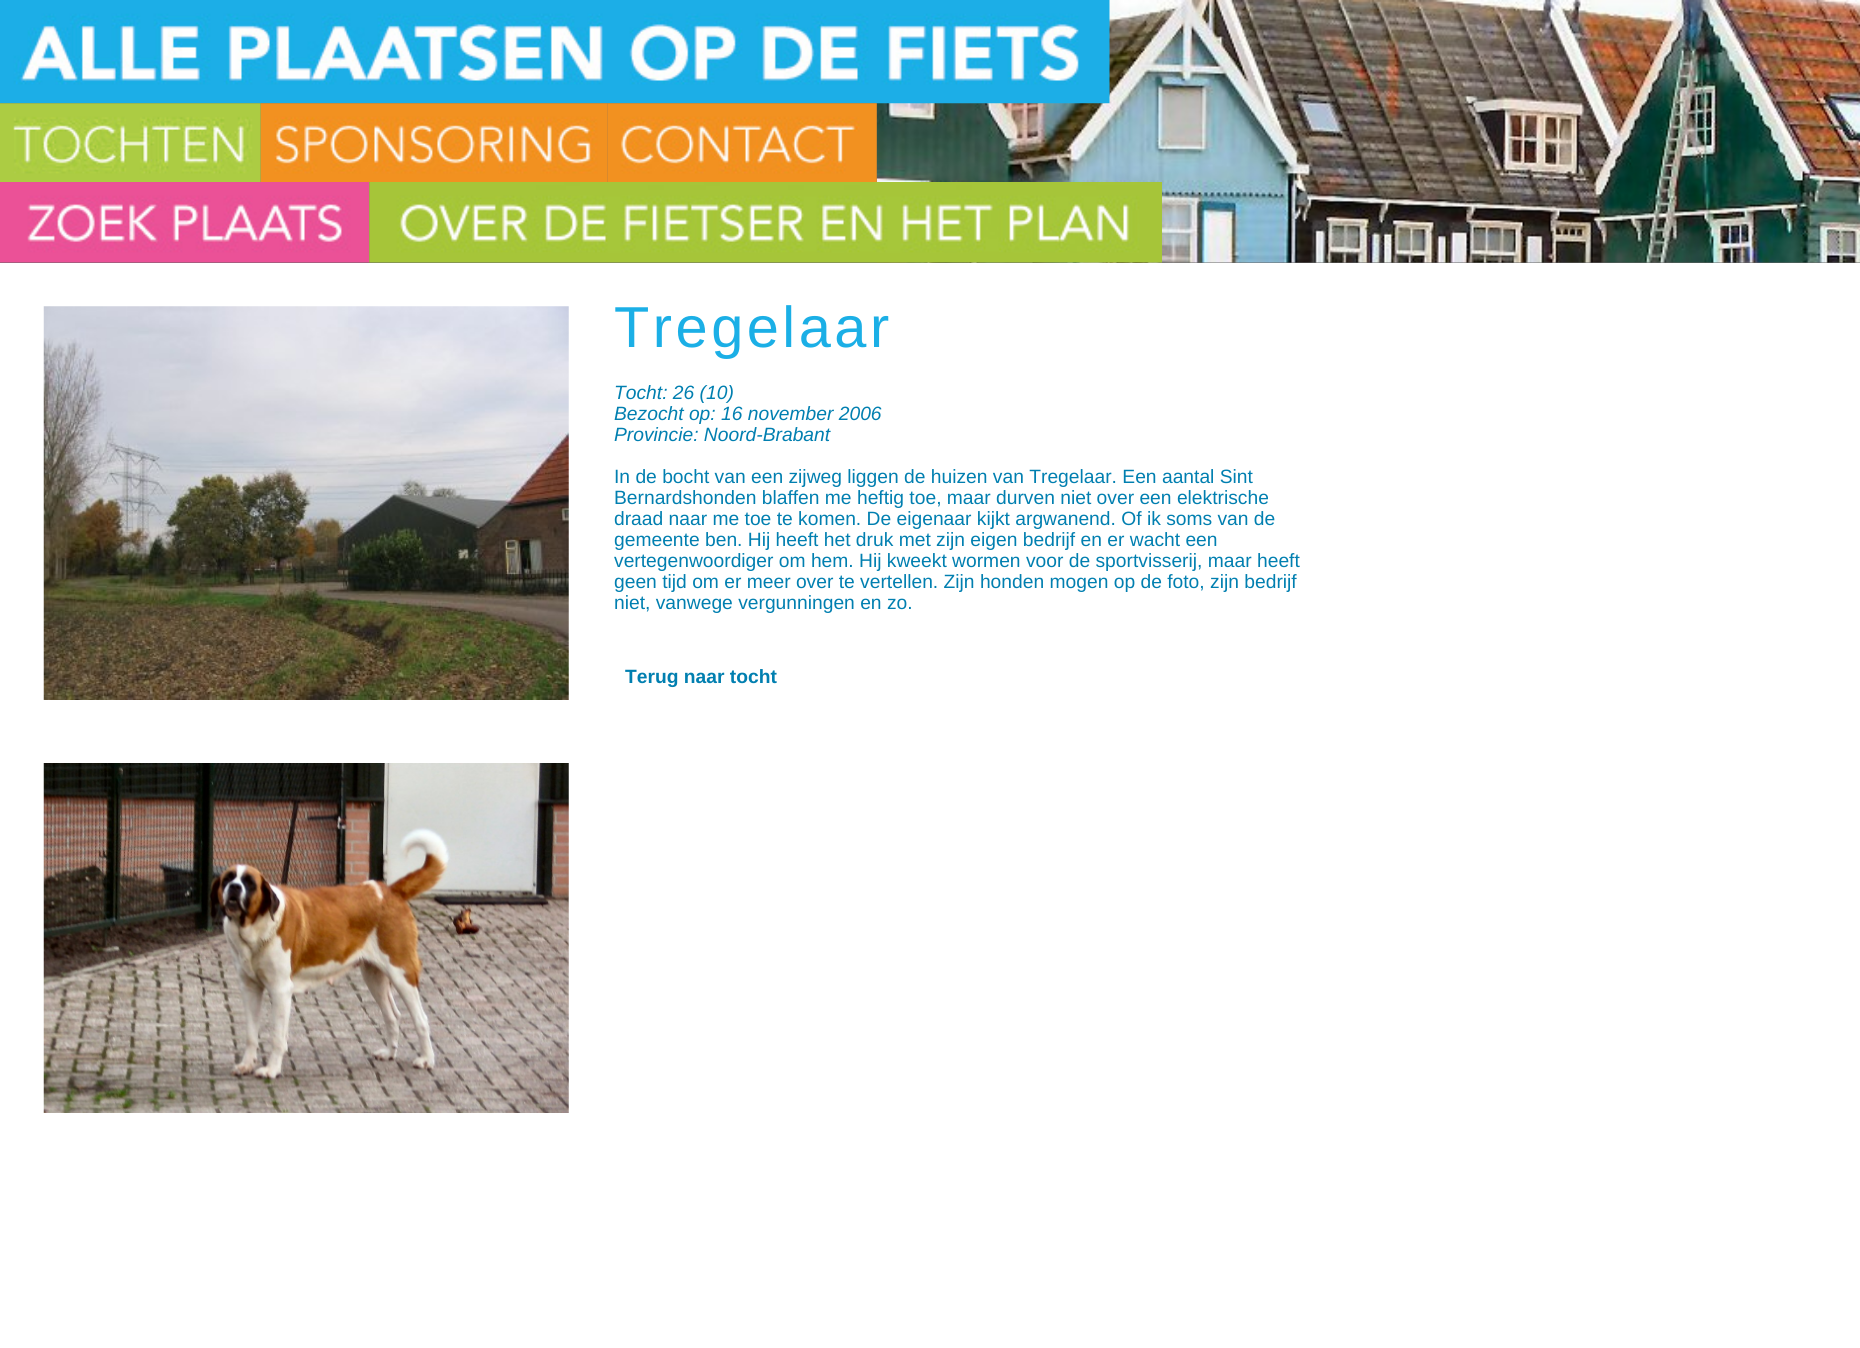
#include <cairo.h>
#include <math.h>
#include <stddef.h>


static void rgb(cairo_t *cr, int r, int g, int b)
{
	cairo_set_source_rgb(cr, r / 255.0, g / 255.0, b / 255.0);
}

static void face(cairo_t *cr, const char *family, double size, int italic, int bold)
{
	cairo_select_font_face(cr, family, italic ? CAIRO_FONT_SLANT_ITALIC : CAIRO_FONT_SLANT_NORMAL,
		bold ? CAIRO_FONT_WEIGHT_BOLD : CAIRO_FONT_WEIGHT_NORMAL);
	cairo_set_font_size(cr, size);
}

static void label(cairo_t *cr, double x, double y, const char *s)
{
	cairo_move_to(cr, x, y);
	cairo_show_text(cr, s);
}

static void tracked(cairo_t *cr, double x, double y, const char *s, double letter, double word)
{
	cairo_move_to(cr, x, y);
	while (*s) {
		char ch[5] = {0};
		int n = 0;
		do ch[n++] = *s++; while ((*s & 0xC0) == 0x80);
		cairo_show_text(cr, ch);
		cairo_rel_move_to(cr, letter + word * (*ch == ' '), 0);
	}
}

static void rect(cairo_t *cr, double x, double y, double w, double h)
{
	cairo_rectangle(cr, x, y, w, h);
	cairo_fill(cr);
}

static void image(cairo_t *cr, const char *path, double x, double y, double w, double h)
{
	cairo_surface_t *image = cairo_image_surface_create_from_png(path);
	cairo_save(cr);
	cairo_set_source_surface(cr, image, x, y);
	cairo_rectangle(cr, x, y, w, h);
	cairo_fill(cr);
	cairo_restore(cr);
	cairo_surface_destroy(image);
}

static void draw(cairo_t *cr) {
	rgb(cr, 255, 255, 255);
	cairo_paint(cr);
	rgb(cr, 102, 102, 102);
	rect(cr, 0, 103, 1860, 160);
	image(cr, "image0.png", 876, 0, 984, 263);
	image(cr, "image1.png", 0, 0, 1110, 104);
	image(cr, "image2.png", 0, 103, 261, 79);
	image(cr, "image3.png", 260, 103, 348, 79);
	image(cr, "image4.png", 607, 103, 270, 79);
	image(cr, "image5.png", 0, 182, 370, 81);
	image(cr, "image6.png", 369, 182, 793, 81);
	image(cr, "image7.png", 43, 306, 526, 394);
	face(cr, "Liberation Sans", 57.75, 0, 0);
	rgb(cr, 27, 175, 230);
	tracked(cr, 614, 347, "Tregelaar", 3.5, 0);
	face(cr, "Liberation Sans", 19.25, 1, 0);
	rgb(cr, 1, 127, 176);
	label(cr, 614, 399, "Tocht: 26 (10)");
	label(cr, 614, 420, "Bezocht op: 16 november 2006");
	label(cr, 614, 441, "Provincie: Noord-Brabant");
	face(cr, "Liberation Sans", 19.25, 0, 0);
	label(cr, 614, 483, "In de bocht van een zijweg liggen de huizen van Tregelaar. Een aantal Sint");
	label(cr, 614, 504, "Bernardshonden blaffen me heftig toe, maar durven niet over een elektrische");
	label(cr, 614, 525, "draad naar me toe te komen. De eigenaar kijkt argwanend. Of ik soms van de");
	label(cr, 614, 546, "gemeente ben. Hij heeft het druk met zijn eigen bedrijf en er wacht een");
	label(cr, 614, 567, "vertegenwoordiger om hem. Hij kweekt wormen voor de sportvisserij, maar heeft");
	label(cr, 614, 588, "geen tijd om er meer over te vertellen. Zijn honden mogen op de foto, zijn bedrijf");
	label(cr, 614, 609, "niet, vanwege vergunningen en zo.");
	face(cr, "Liberation Sans", 19.25, 0, 1);
	label(cr, 625, 683, "Terug naar tocht");
	image(cr, "image8.png", 43, 763, 526, 350);
}

int main(void) {
	cairo_surface_t *surface = cairo_image_surface_create(CAIRO_FORMAT_RGB24, 1860, 1348);
	cairo_t *cr = cairo_create(surface);
	cairo_font_options_t *options = cairo_font_options_create();
	cairo_font_options_set_hint_metrics(options, CAIRO_HINT_METRICS_OFF);
	cairo_font_options_set_hint_style(options, CAIRO_HINT_STYLE_NONE);
	cairo_set_font_options(cr, options);
	cairo_set_miter_limit(cr, 4);
	draw(cr);
	cairo_surface_write_to_png(surface, "render.png");
	cairo_font_options_destroy(options);
	cairo_destroy(cr);
	cairo_surface_destroy(surface);
	return 0;
}
